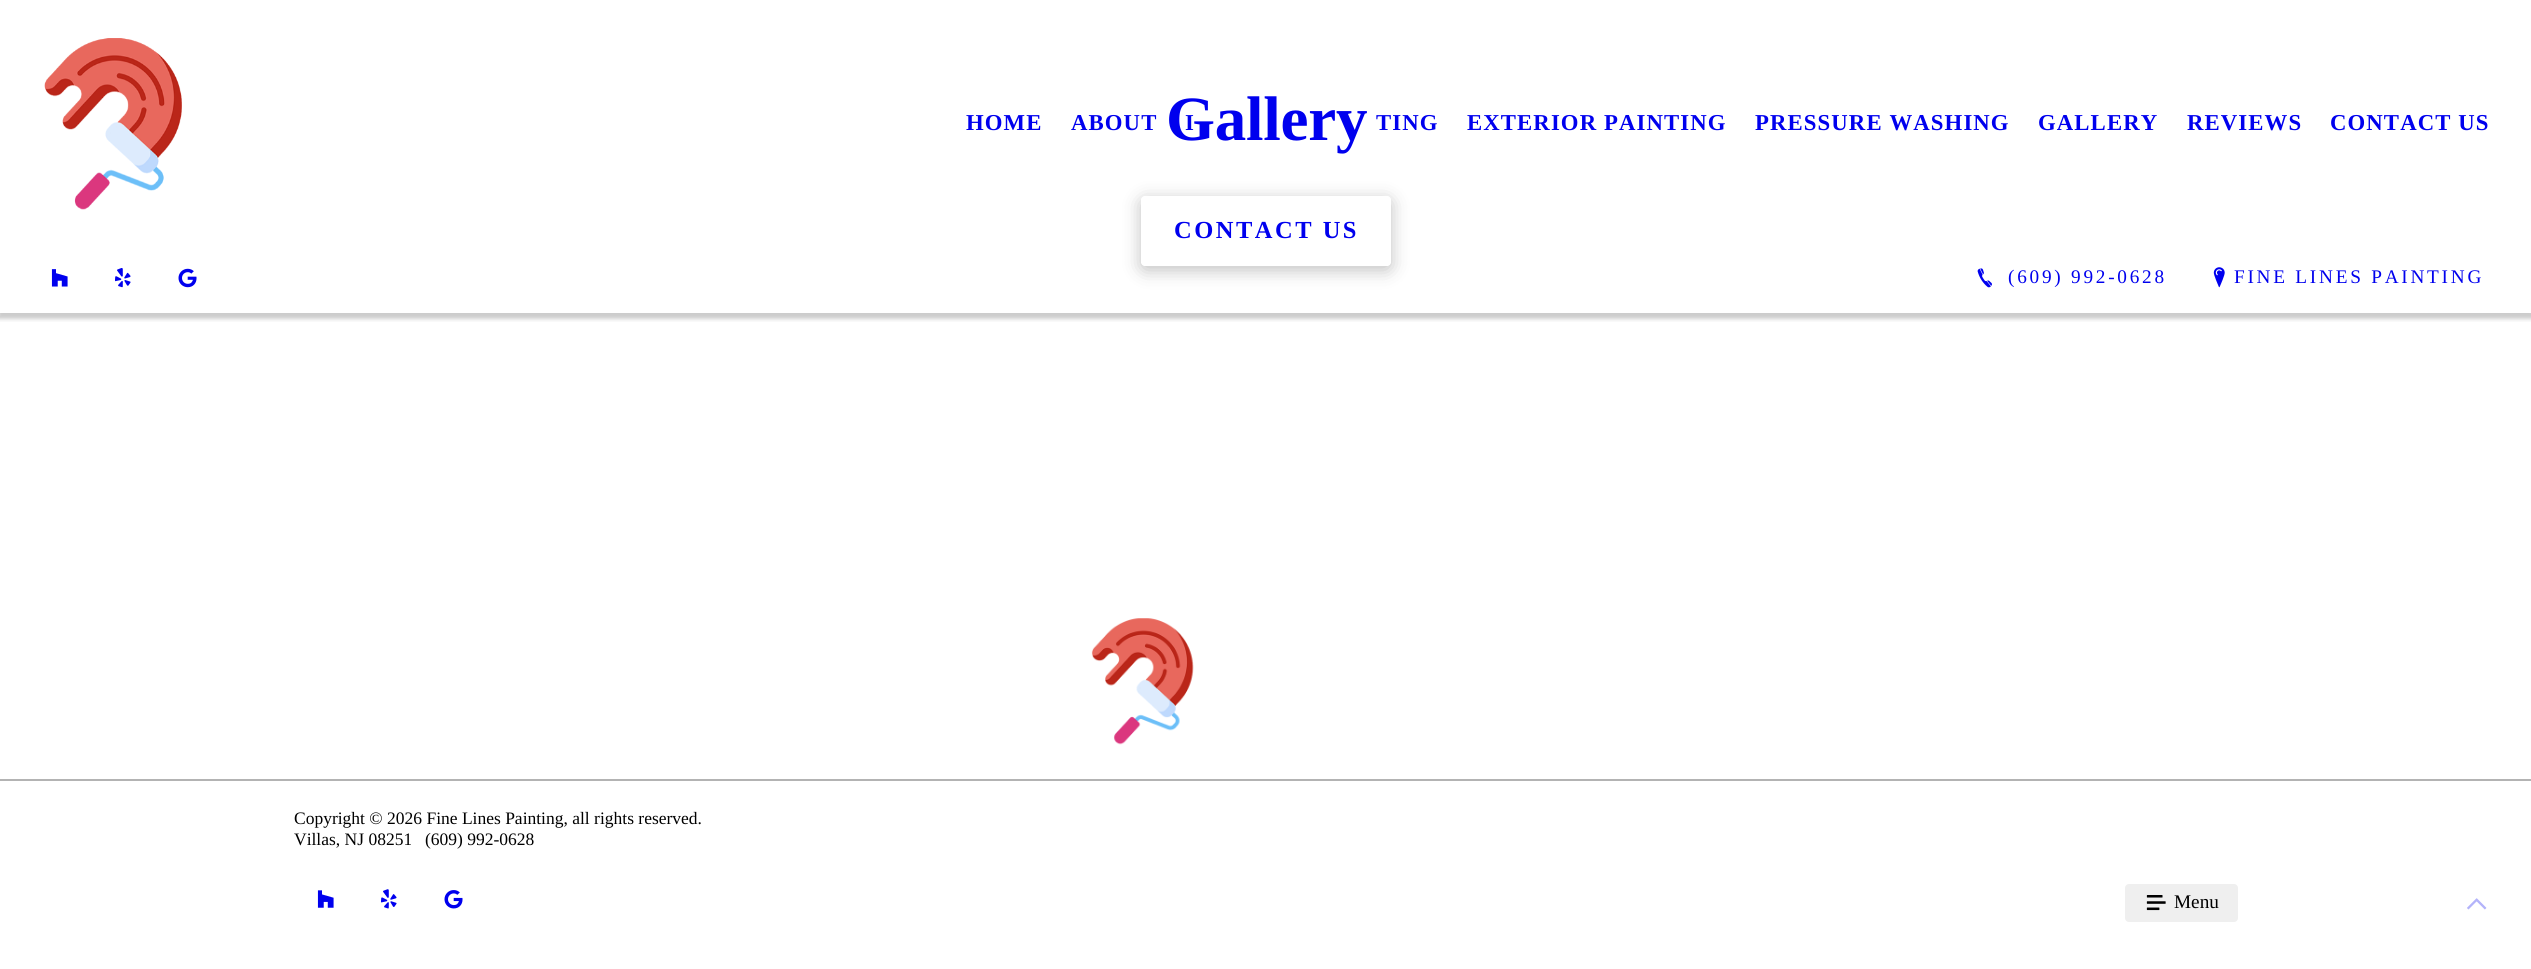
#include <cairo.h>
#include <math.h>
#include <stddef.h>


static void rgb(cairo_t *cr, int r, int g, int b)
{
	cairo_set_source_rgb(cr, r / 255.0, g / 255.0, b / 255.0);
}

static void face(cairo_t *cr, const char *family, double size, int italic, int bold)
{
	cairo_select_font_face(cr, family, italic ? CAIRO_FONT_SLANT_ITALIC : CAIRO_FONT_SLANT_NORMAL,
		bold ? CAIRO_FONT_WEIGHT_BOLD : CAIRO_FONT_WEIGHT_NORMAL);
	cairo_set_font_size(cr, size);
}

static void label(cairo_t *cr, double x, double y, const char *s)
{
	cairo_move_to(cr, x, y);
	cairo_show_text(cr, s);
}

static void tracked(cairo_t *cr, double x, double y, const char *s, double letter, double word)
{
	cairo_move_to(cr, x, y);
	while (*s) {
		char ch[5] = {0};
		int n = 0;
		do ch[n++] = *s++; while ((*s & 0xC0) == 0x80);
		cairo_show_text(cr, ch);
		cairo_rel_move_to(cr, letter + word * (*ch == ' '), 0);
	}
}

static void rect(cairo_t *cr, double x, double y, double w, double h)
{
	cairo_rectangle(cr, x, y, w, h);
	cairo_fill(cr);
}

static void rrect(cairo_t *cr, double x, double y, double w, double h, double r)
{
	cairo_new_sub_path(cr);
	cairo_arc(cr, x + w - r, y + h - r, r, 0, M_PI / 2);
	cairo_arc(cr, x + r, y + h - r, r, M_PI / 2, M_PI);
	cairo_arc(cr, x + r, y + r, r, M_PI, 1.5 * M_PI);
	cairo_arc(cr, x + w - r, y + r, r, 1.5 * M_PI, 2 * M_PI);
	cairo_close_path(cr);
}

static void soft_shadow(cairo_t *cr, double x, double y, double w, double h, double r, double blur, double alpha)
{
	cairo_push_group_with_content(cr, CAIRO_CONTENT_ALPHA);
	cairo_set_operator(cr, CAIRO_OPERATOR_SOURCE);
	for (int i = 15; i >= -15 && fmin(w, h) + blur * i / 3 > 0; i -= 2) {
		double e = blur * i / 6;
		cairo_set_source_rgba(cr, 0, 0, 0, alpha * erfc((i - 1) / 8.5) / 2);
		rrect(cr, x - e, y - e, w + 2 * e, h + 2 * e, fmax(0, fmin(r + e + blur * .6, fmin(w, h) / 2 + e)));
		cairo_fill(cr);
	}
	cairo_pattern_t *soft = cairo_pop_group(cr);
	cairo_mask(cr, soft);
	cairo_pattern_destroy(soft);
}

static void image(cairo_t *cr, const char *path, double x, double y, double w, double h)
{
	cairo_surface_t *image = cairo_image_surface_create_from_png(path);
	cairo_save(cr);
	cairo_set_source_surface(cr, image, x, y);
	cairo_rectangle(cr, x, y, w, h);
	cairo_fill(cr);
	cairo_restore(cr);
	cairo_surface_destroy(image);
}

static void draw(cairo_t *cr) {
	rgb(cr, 255, 255, 255);
	cairo_paint(cr);
	face(cr, "Liberation Serif", 63, 0, 1);
	rgb(cr, 0, 0, 238);
	tracked(cr, 1166, 140, "Gallery", -0.25, 0);
	cairo_save(cr);
	cairo_set_fill_rule(cr, CAIRO_FILL_RULE_EVEN_ODD);
	cairo_new_path(cr);
	cairo_move_to(cr, 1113, 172);
	cairo_line_to(cr, 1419, 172);
	cairo_line_to(cr, 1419, 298);
	cairo_line_to(cr, 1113, 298);
	cairo_close_path(cr);
	cairo_move_to(cr, 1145, 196);
	cairo_line_to(cr, 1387, 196);
	cairo_curve_to(cr, 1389, 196, 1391, 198, 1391, 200);
	cairo_line_to(cr, 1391, 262);
	cairo_curve_to(cr, 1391, 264, 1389, 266, 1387, 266);
	cairo_line_to(cr, 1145, 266);
	cairo_curve_to(cr, 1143, 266, 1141, 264, 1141, 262);
	cairo_line_to(cr, 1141, 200);
	cairo_curve_to(cr, 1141, 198, 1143, 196, 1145, 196);
	cairo_close_path(cr);
	cairo_clip(cr);
	rgb(cr, 0, 0, 0);
	soft_shadow(cr, 1141, 200, 250, 70, 4, 9, 0.25);
	cairo_restore(cr);
	face(cr, "Liberation Serif", 24.5, 0, 1);
	tracked(cr, 1174, 238, "CONTACT US", 2.5, 0);
	image(cr, "image0.png", 44, 38, 138, 172);
	face(cr, "Liberation Serif", 22.75, 0, 1);
	tracked(cr, 966, 130, "HOME", 1.1, 0);
	tracked(cr, 1071, 130, "ABOUT", 1.1, 0);
	tracked(cr, 1185, 130, "I", 1.1, 0);
	tracked(cr, 1376, 130, "TING", 1.1, 0);
	tracked(cr, 1467, 130, "EXTERIOR PAINTING", 1.1, 0);
	tracked(cr, 1755, 130, "PRESSURE WASHING", 1.1, 0);
	tracked(cr, 2038, 130, "GALLERY", 1.1, 0);
	tracked(cr, 2187, 130, "REVIEWS", 1.1, 0);
	tracked(cr, 2330, 130, "CONTACT US", 1.1, 0);
	cairo_save(cr);
	cairo_rectangle(cr, 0, 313, 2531, 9);
	cairo_clip(cr);
	rgb(cr, 0, 0, 0);
	soft_shadow(cr, -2, 249, 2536, 70, 0, 2, 0.2);
	cairo_restore(cr);
	image(cr, "image1.png", 51, 269, 17, 18);
	image(cr, "image2.png", 115, 268, 16, 20);
	image(cr, "image3.png", 178, 268, 19, 20);
	image(cr, "image4.png", 1977, 268, 15, 20);
	face(cr, "Liberation Serif", 19.25, 0, 0);
	tracked(cr, 2008, 283, "(609) 992-0628", 2.75, 0);
	image(cr, "image5.png", 2213, 267, 12, 21);
	tracked(cr, 2234, 283, "FINE LINES PAINTING", 2.75, 0);
	image(cr, "image6.png", 1091, 618, 103, 127);
	rgb(cr, 179, 179, 179);
	rect(cr, 0, 779, 2531, 2);
	face(cr, "Liberation Serif", 17.5, 0, 0);
	rgb(cr, 0, 0, 0);
	label(cr, 294, 824, "Copyright © 2026 Fine Lines Painting, all rights reserved.");
	label(cr, 294, 845, "Villas, NJ 08251");
	label(cr, 425, 845, "(609) 992-0628");
	image(cr, "image7.png", 317, 890, 17, 18);
	image(cr, "image8.png", 381, 889, 16, 20);
	image(cr, "image9.png", 444, 890, 19, 19);
	rgb(cr, 239, 239, 239);
	rrect(cr, 2125, 884, 113, 38, 4);
	cairo_fill(cr);
	image(cr, "image10.png", 2146, 895, 20, 16);
	face(cr, "Liberation Serif", 19.25, 0, 0);
	rgb(cr, 0, 0, 0);
	label(cr, 2174, 908, "Menu");
	face(cr, "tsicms", 25, 0, 0);
	rgb(cr, 179, 179, 250);
	label(cr, 2467, 914, "+");
}

int main(void) {
	cairo_surface_t *surface = cairo_image_surface_create(CAIRO_FORMAT_RGB24, 2531, 969);
	cairo_t *cr = cairo_create(surface);
	cairo_font_options_t *options = cairo_font_options_create();
	cairo_font_options_set_hint_metrics(options, CAIRO_HINT_METRICS_OFF);
	cairo_font_options_set_hint_style(options, CAIRO_HINT_STYLE_NONE);
	cairo_set_font_options(cr, options);
	cairo_set_miter_limit(cr, 4);
	draw(cr);
	cairo_surface_write_to_png(surface, "render.png");
	cairo_font_options_destroy(options);
	cairo_destroy(cr);
	cairo_surface_destroy(surface);
	return 0;
}
